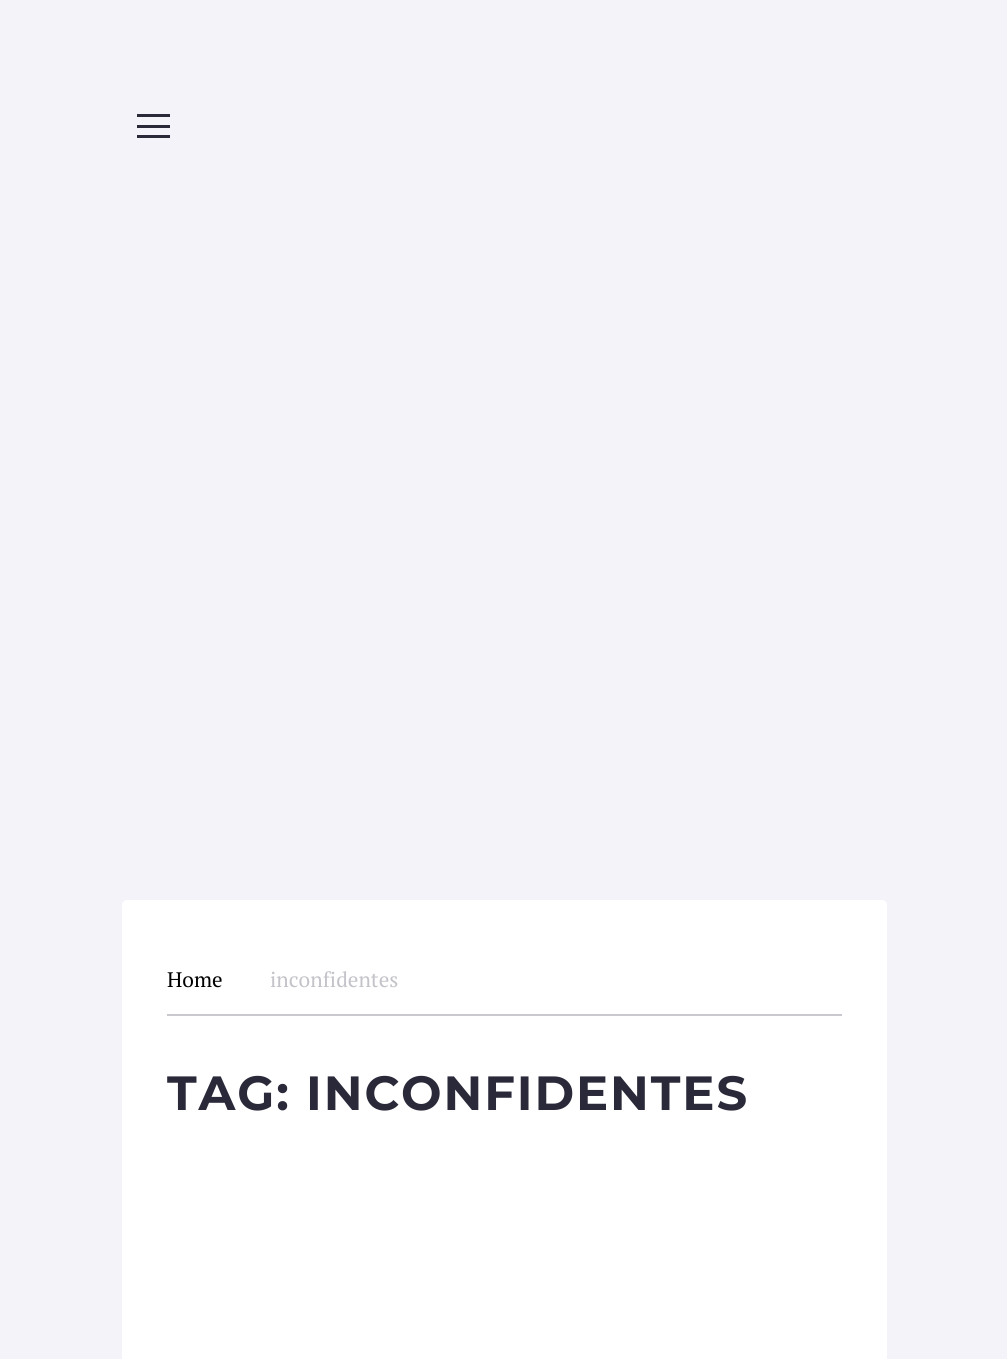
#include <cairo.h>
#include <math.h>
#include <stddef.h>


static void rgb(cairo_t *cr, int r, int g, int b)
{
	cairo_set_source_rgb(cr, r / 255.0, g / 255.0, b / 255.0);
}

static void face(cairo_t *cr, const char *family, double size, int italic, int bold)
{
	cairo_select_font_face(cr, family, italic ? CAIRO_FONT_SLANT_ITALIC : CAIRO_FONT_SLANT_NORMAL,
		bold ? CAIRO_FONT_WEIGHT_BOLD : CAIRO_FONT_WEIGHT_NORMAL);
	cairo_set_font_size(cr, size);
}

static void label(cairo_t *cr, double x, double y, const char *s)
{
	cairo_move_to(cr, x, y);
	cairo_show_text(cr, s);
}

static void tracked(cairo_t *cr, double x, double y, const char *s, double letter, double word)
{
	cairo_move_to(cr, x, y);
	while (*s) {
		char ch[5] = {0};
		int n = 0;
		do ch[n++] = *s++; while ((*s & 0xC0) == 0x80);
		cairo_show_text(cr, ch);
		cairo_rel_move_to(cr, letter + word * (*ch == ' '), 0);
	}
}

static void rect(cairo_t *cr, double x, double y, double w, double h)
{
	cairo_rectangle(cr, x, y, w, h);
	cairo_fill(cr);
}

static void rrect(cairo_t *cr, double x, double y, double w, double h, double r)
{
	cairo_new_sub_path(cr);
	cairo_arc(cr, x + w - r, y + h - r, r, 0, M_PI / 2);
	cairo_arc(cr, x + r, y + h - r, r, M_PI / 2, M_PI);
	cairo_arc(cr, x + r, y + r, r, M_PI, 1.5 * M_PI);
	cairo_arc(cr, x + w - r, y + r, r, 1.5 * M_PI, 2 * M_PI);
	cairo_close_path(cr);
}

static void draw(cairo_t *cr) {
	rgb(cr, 243, 243, 249);
	cairo_paint(cr);
	rgb(cr, 41, 41, 58);
	rect(cr, 137, 125, 33, 3);
	rect(cr, 137, 114, 33, 3);
	rect(cr, 137, 135, 33, 3);
	rgb(cr, 255, 255, 255);
	rrect(cr, 122, 900, 765, 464, 5);
	cairo_fill(cr);
	rgb(cr, 200, 200, 206);
	rect(cr, 167, 1014, 675, 2);
	face(cr, "PT Serif", 21, 0, 0);
	rgb(cr, 0, 0, 0);
	label(cr, 167, 987, "Home");
	rgb(cr, 195, 195, 201);
	label(cr, 270, 987, "inconfidentes");
	face(cr, "Montserrat", 48, 0, 1);
	rgb(cr, 41, 41, 58);
	tracked(cr, 167, 1110, "TAG: INCONFIDENTES", 1.9, 0);
}

int main(void) {
	cairo_surface_t *surface = cairo_image_surface_create(CAIRO_FORMAT_RGB24, 1007, 1359);
	cairo_t *cr = cairo_create(surface);
	cairo_font_options_t *options = cairo_font_options_create();
	cairo_font_options_set_hint_metrics(options, CAIRO_HINT_METRICS_OFF);
	cairo_font_options_set_hint_style(options, CAIRO_HINT_STYLE_NONE);
	cairo_set_font_options(cr, options);
	cairo_set_miter_limit(cr, 4);
	draw(cr);
	cairo_surface_write_to_png(surface, "render.png");
	cairo_font_options_destroy(options);
	cairo_destroy(cr);
	cairo_surface_destroy(surface);
	return 0;
}
